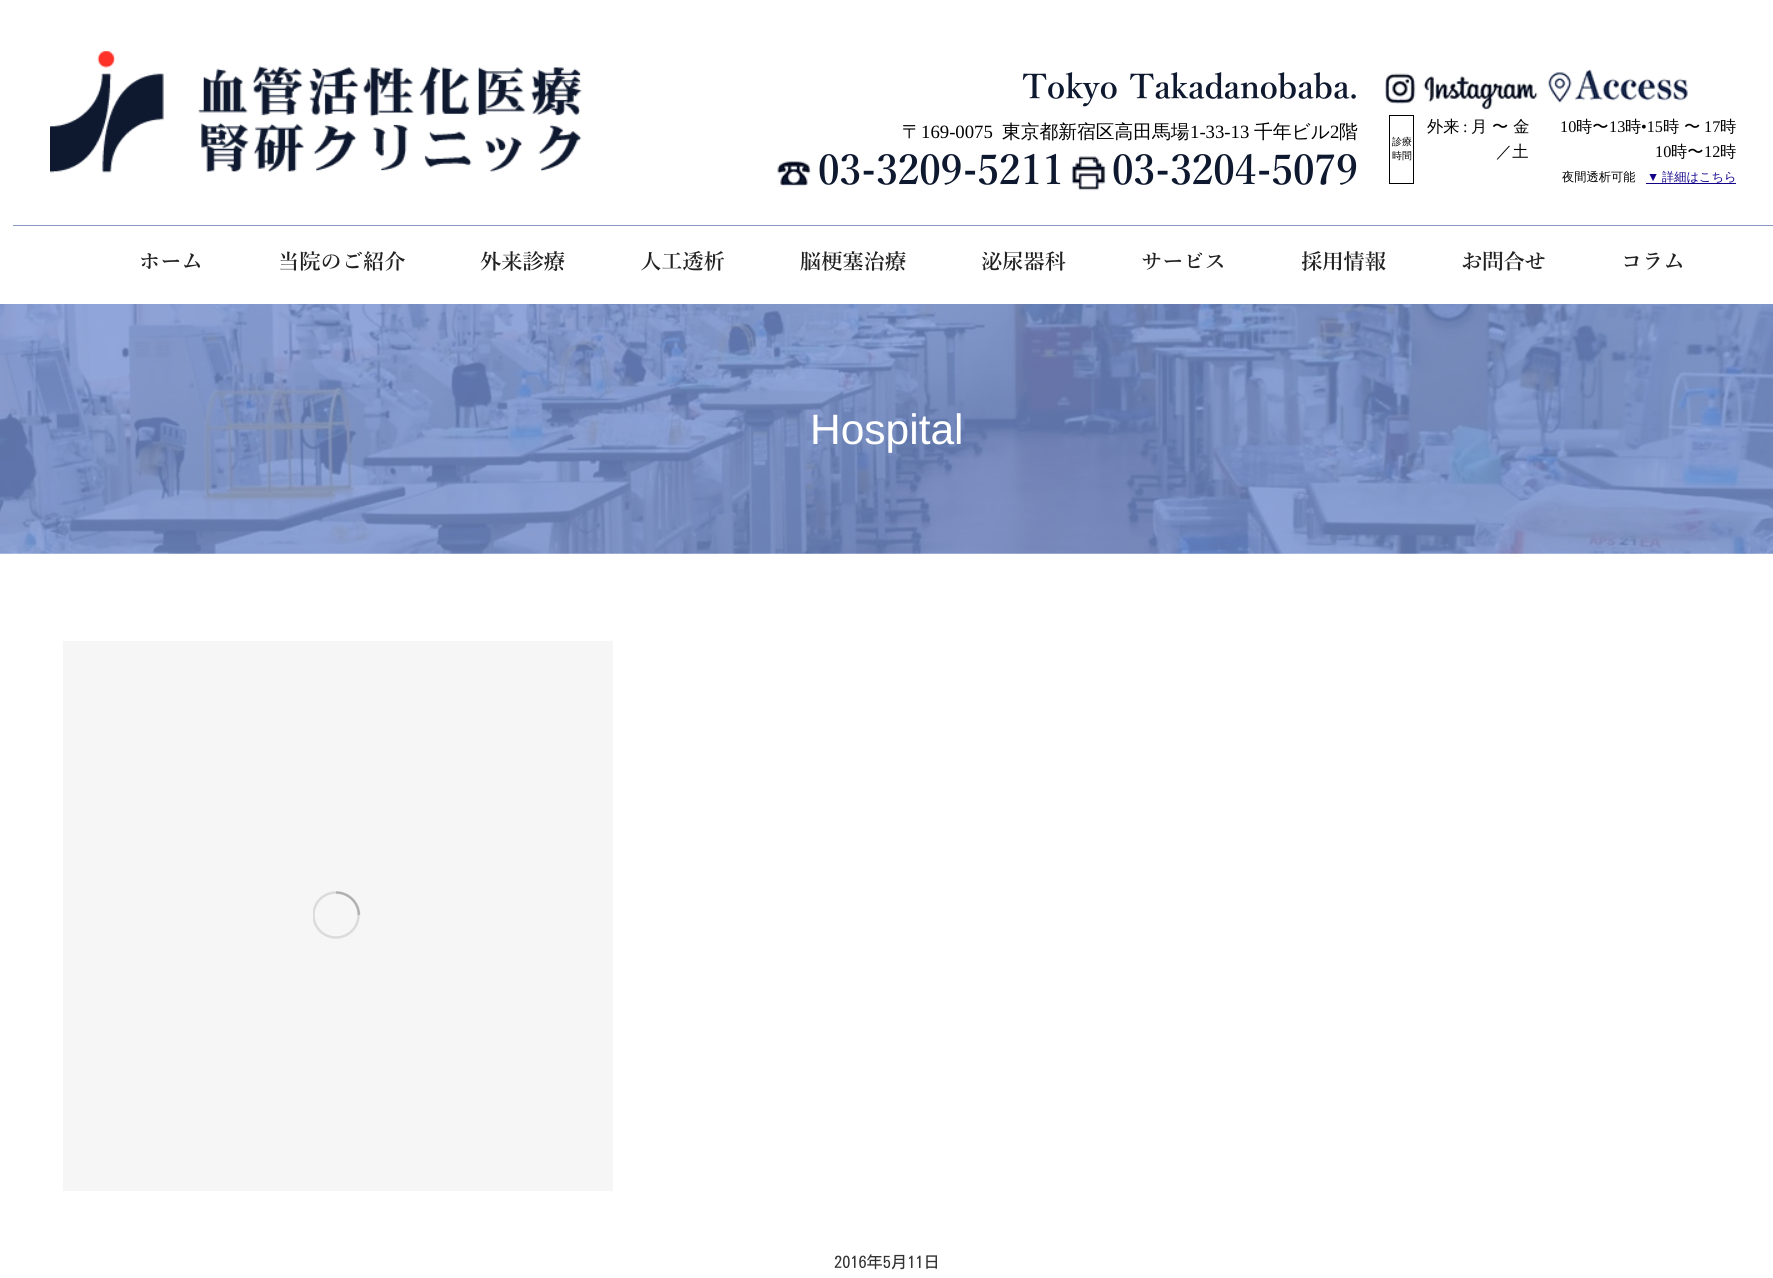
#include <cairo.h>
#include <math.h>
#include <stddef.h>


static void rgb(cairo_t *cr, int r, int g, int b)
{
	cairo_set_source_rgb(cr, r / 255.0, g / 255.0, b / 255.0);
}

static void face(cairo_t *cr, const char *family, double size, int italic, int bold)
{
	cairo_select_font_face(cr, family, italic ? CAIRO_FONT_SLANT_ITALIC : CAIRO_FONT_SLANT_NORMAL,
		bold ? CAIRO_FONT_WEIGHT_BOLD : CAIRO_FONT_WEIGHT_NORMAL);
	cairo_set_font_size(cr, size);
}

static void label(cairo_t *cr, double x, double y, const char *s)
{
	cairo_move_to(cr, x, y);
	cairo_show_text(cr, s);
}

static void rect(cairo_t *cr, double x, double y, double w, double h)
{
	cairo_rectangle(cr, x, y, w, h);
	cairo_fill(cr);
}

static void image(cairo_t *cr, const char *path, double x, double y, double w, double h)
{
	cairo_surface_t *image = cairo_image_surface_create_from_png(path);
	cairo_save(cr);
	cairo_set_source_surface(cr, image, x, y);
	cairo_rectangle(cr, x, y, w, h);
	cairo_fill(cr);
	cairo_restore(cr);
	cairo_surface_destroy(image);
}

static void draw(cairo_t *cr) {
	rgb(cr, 255, 255, 255);
	cairo_paint(cr);
	image(cr, "image0.png", 50, 51, 532, 122);
	face(cr, "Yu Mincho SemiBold", 33.75, 0, 0);
	rgb(cr, 14, 25, 48);
	label(cr, 1022, 99, "Tokyo Takadanobaba.");
	face(cr, "WenQuanYi Zen Hei Medium", 18.75, 0, 0);
	rgb(cr, 0, 0, 0);
	label(cr, 902, 138, "〒");
	face(cr, "Liberation Serif", 18.75, 0, 0);
	label(cr, 921, 138, "169-0075");
	face(cr, "WenQuanYi Zen Hei Medium", 18.75, 0, 0);
	label(cr, 1002, 138, "東京都新宿区高田馬場");
	face(cr, "Liberation Serif", 18.75, 0, 0);
	label(cr, 1190, 138, "1-33-13");
	face(cr, "WenQuanYi Zen Hei Medium", 18.75, 0, 0);
	label(cr, 1254, 138, "千年ビル");
	face(cr, "Liberation Serif", 18.75, 0, 0);
	label(cr, 1330, 138, "2");
	face(cr, "WenQuanYi Zen Hei Medium", 18.75, 0, 0);
	label(cr, 1339, 138, "階");
	image(cr, "image1.png", 777, 161, 34, 26);
	face(cr, "Yu Mincho SemiBold", 41.25, 0, 0);
	rgb(cr, 14, 25, 48);
	label(cr, 818, 185, "03-3209-5211");
	image(cr, "image2.png", 1071, 156, 35, 35);
	label(cr, 1112, 185, "03-3204-5079");
	image(cr, "image3.png", 1385, 73, 153, 37);
	image(cr, "image4.png", 1548, 69, 140, 34);
	cairo_rectangle(cr, 1389.5, 115.5, 24, 68);
	rgb(cr, 0, 0, 0);
	cairo_set_line_width(cr, 1);
	cairo_stroke(cr);
	face(cr, "WenQuanYi Zen Hei Medium", 10, 0, 0);
	label(cr, 1392, 145, "診療");
	label(cr, 1392, 159, "時間");
	face(cr, "WenQuanYi Zen Hei Medium", 16.25, 0, 0);
	label(cr, 1427, 132, "外来");
	face(cr, "Liberation Serif", 16.25, 0, 0);
	label(cr, 1463, 132, ":");
	face(cr, "WenQuanYi Zen Hei Medium", 16.25, 0, 0);
	label(cr, 1471, 132, "月 〜 金");
	face(cr, "Liberation Serif", 16.25, 0, 0);
	label(cr, 1560, 132, "10");
	face(cr, "WenQuanYi Zen Hei Medium", 16.25, 0, 0);
	label(cr, 1576, 132, "時〜");
	face(cr, "Liberation Serif", 16.25, 0, 0);
	label(cr, 1609, 132, "13");
	face(cr, "WenQuanYi Zen Hei Medium", 16.25, 0, 0);
	label(cr, 1625, 132, "時");
	face(cr, "Liberation Serif", 16.25, 0, 0);
	label(cr, 1641, 132, "•15");
	face(cr, "WenQuanYi Zen Hei Medium", 16.25, 0, 0);
	label(cr, 1663, 132, "時 〜");
	face(cr, "Liberation Serif", 16.25, 0, 0);
	label(cr, 1704, 132, "17");
	face(cr, "WenQuanYi Zen Hei Medium", 16.25, 0, 0);
	label(cr, 1720, 132, "時");
	label(cr, 1496, 157, "／土");
	face(cr, "Liberation Serif", 16.25, 0, 0);
	label(cr, 1655, 157, "10");
	face(cr, "WenQuanYi Zen Hei Medium", 16.25, 0, 0);
	label(cr, 1671, 157, "時〜");
	face(cr, "Liberation Serif", 16.25, 0, 0);
	label(cr, 1704, 157, "12");
	face(cr, "WenQuanYi Zen Hei Medium", 16.25, 0, 0);
	label(cr, 1720, 157, "時");
	face(cr, "WenQuanYi Zen Hei Medium", 12.25, 0, 0);
	label(cr, 1562, 181, "夜間透析可能");
	face(cr, "Liberation Serif", 12.25, 0, 0);
	rgb(cr, 17, 1, 137);
	label(cr, 1647, 181, "▼");
	rect(cr, 1646, 183, 90, 1);
	face(cr, "WenQuanYi Zen Hei Medium", 12.25, 0, 0);
	label(cr, 1662, 181, "詳細はこちら");
	rgb(cr, 140, 152, 193);
	rect(cr, 13, 225, 1760, 1);
	face(cr, "Yu Mincho SemiBold", 21.25, 0, 0);
	rgb(cr, 33, 33, 33);
	label(cr, 139, 269, "ホーム");
	label(cr, 278, 269, "当院のご紹介");
	label(cr, 480, 269, "外来診療");
	label(cr, 640, 269, "人工透析");
	label(cr, 800, 269, "脳梗塞治療");
	label(cr, 981, 269, "泌尿器科");
	label(cr, 1141, 269, "サービス");
	label(cr, 1301, 269, "採用情報");
	label(cr, 1461, 269, "お問合せ");
	label(cr, 1621, 269, "コラム");
	image(cr, "image5.png", 0, 304, 1773, 250);
	face(cr, "Liberation Sans", 42.5, 0, 0);
	rgb(cr, 255, 255, 255);
	label(cr, 810, 444, "Hospital");
	rgb(cr, 246, 246, 246);
	rect(cr, 63, 641, 550, 550);
	cairo_save(cr);
	cairo_rectangle(cr, 313, 891, 47, 48);
	cairo_clip(cr);
	cairo_arc(cr, 336, 915, 22.5, 0, 2 * M_PI);
	rgb(cr, 219, 219, 219);
	cairo_set_line_width(cr, 2.5);
	cairo_stroke(cr);
	cairo_restore(cr);
	cairo_new_path(cr);
	cairo_move_to(cr, 359, 915);
	cairo_curve_to(cr, 359, 902.5, 348.5, 892.5, 336, 892.5);
	cairo_set_source_rgba(cr, 0.2, 0.2, 0.2, 0.25);
	cairo_set_line_width(cr, 2.5);
	cairo_stroke(cr);
	face(cr, "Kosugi", 16.25, 0, 0);
	rgb(cr, 51, 51, 51);
	label(cr, 834, 1268, "2016年5月11日");
}

int main(void) {
	cairo_surface_t *surface = cairo_image_surface_create(CAIRO_FORMAT_RGB24, 1773, 1278);
	cairo_t *cr = cairo_create(surface);
	cairo_font_options_t *options = cairo_font_options_create();
	cairo_font_options_set_hint_metrics(options, CAIRO_HINT_METRICS_OFF);
	cairo_font_options_set_hint_style(options, CAIRO_HINT_STYLE_NONE);
	cairo_set_font_options(cr, options);
	cairo_set_miter_limit(cr, 4);
	draw(cr);
	cairo_surface_write_to_png(surface, "render.png");
	cairo_font_options_destroy(options);
	cairo_destroy(cr);
	cairo_surface_destroy(surface);
	return 0;
}
